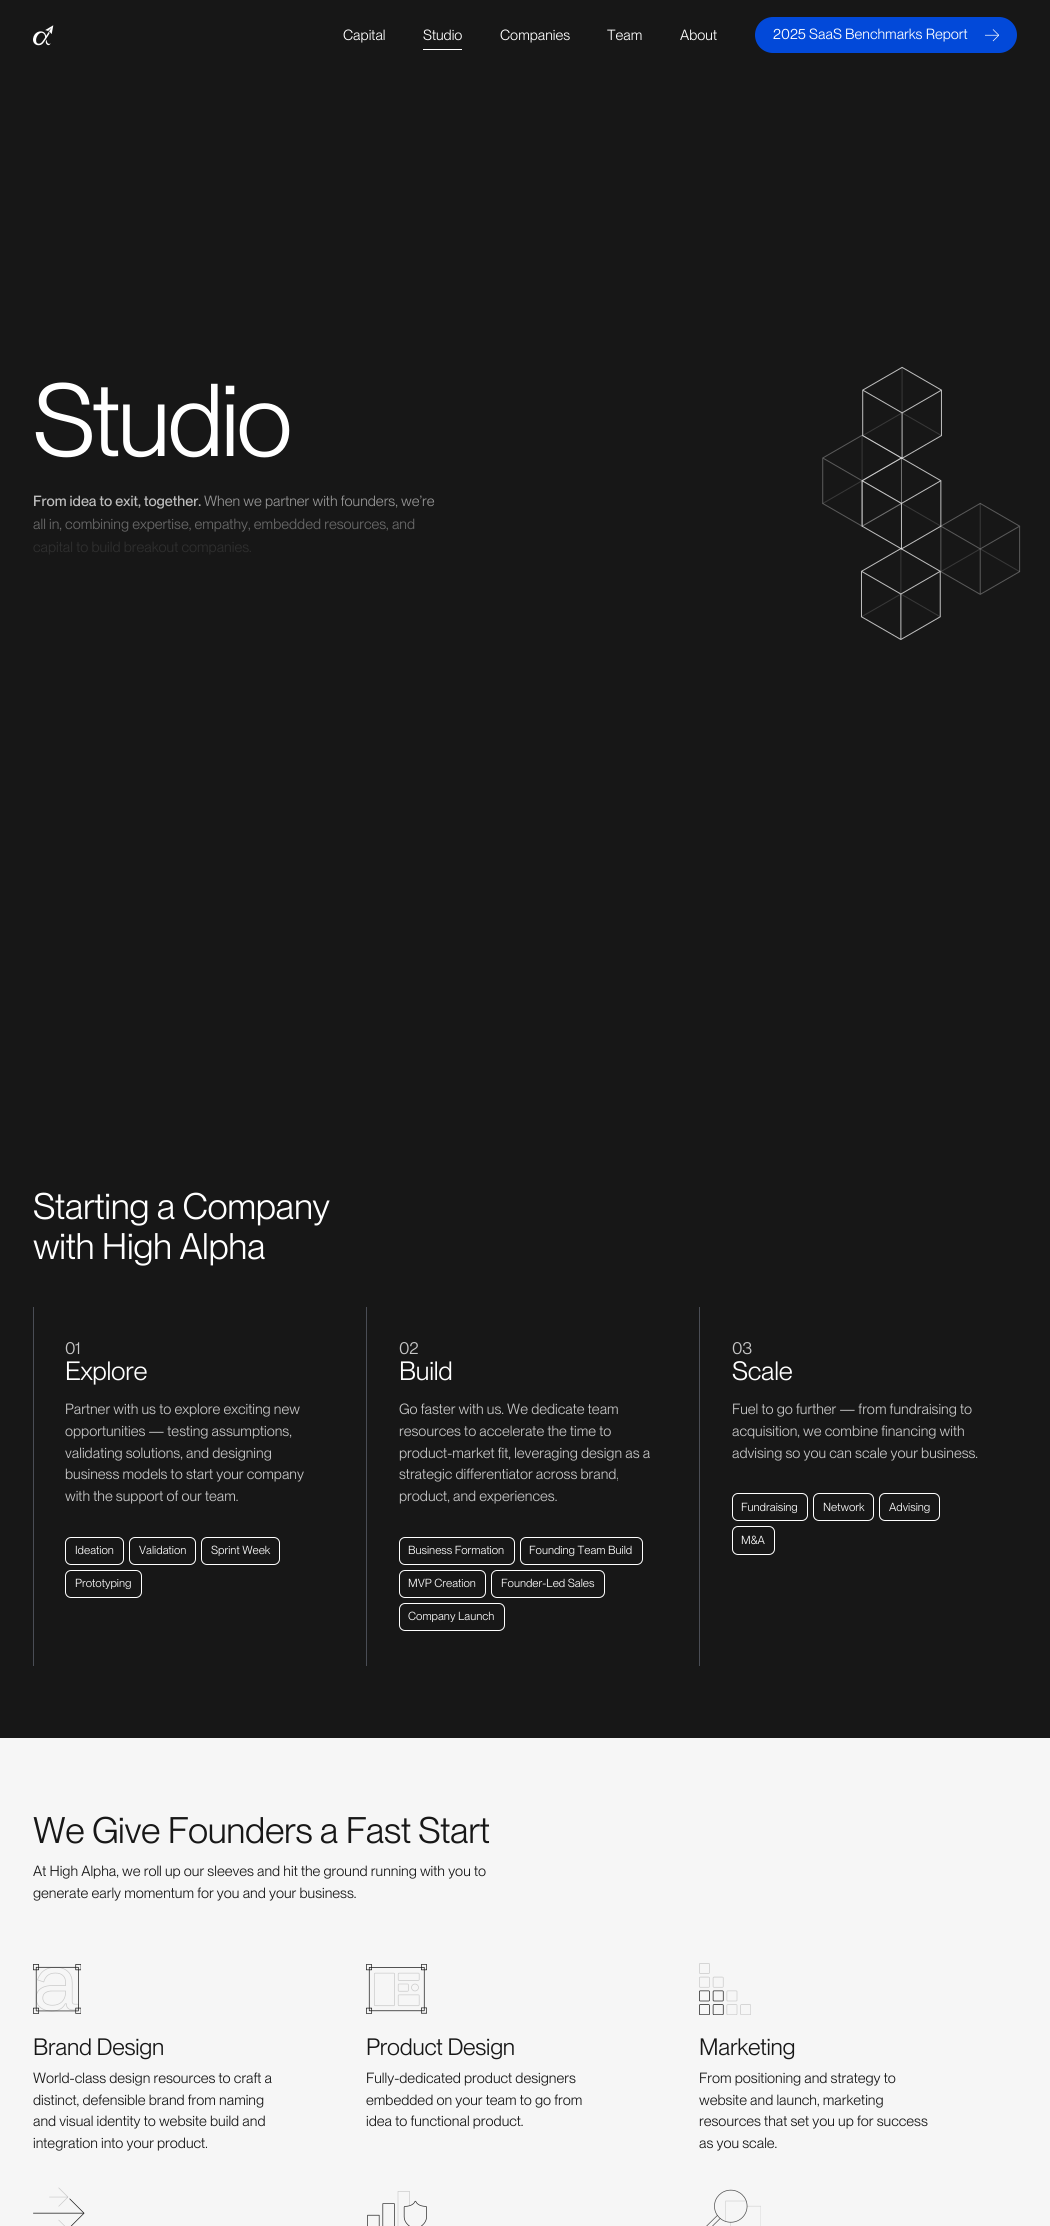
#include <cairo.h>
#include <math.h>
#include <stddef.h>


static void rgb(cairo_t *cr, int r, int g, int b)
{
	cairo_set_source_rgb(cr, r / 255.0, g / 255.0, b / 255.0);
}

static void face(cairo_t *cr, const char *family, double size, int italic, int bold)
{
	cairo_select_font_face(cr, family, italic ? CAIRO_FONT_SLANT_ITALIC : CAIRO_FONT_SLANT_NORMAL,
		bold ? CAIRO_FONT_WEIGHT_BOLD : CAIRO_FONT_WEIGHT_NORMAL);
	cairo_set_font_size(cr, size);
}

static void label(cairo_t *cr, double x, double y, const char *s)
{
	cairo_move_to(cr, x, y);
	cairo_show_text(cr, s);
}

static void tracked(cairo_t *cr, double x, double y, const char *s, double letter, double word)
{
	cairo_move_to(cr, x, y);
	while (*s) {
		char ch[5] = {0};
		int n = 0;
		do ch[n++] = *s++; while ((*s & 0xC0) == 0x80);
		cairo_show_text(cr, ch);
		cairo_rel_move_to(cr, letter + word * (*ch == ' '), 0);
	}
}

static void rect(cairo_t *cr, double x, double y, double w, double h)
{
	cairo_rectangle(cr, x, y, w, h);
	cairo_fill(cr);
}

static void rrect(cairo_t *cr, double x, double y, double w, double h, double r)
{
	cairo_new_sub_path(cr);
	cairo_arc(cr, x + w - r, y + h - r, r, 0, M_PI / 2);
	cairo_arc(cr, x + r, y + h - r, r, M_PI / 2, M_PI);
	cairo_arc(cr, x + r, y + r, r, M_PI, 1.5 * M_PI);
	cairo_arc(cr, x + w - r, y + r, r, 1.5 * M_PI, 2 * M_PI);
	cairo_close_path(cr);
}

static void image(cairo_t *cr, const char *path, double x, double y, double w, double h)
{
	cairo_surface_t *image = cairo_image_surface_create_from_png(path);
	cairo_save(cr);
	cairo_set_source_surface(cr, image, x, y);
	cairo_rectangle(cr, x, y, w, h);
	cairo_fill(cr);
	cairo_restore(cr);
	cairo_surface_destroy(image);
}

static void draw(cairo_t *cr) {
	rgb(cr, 23, 23, 23);
	cairo_paint(cr);
	image(cr, "image0.png", 33, 25, 21, 21);
	face(cr, "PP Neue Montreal", 14.5, 0, 0);
	rgb(cr, 255, 255, 255);
	label(cr, 343, 40, "Capital");
	rect(cr, 423, 49, 39, 1);
	label(cr, 423, 40, "Studio");
	label(cr, 500, 40, "Companies");
	label(cr, 607, 40, "Team");
	label(cr, 680, 40, "About");
	rgb(cr, 2, 73, 217);
	rrect(cr, 755, 17, 262, 36, 18);
	cairo_fill(cr);
	rgb(cr, 255, 255, 255);
	label(cr, 773, 39, "2025 SaaS Benchmarks Report");
	image(cr, "image1.png", 985, 29, 14, 13);
	face(cr, "PP Neue Montreal", 101, 0, 0);
	tracked(cr, 33, 456, "Studio", -3, 0);
	face(cr, "PP Neue Montreal Medium", 14.5, 0, 0);
	rgb(cr, 190, 190, 190);
	label(cr, 33, 506, "From idea to exit, together.");
	face(cr, "PP Neue Montreal", 14.5, 0, 0);
	rgb(cr, 150, 150, 150);
	label(cr, 204, 506, "When we partner with founders, we’re");
	rgb(cr, 106, 106, 106);
	label(cr, 33, 529, "all in, combining expertise, empathy, embedded resources, and");
	rgb(cr, 47, 47, 47);
	label(cr, 33, 552, "capital to build breakout companies.");
	image(cr, "image2.png", 822, 366, 199, 274);
	face(cr, "PP Neue Montreal", 36.25, 0, 0);
	rgb(cr, 255, 255, 255);
	tracked(cr, 33, 1219, "Starting a Company", -0.35, 0);
	tracked(cr, 33, 1259, "with High Alpha", -0.35, 0);
	rgb(cr, 74, 77, 85);
	rect(cr, 33, 1307, 1, 359);
	face(cr, "PP Neue Montreal", 17, 0, 0);
	rgb(cr, 199, 199, 199);
	tracked(cr, 65, 1354, "01", -0.25, 0);
	face(cr, "PP Neue Montreal", 26, 0, 0);
	rgb(cr, 255, 255, 255);
	tracked(cr, 65, 1380, "Explore", -0.25, 0);
	face(cr, "PP Neue Montreal", 14.5, 0, 0);
	rgb(cr, 199, 199, 199);
	label(cr, 65, 1414, "Partner with us to explore exciting new");
	label(cr, 65, 1436, "opportunities — testing assumptions,");
	label(cr, 65, 1458, "validating solutions, and designing");
	label(cr, 65, 1479, "business models to start your company");
	label(cr, 65, 1501, "with the support of our team.");
	rrect(cr, 65.5, 1537.5, 58, 27, 5.5);
	rgb(cr, 255, 255, 255);
	cairo_set_line_width(cr, 1);
	cairo_stroke(cr);
	face(cr, "PP Neue Montreal", 11.5, 0, 0);
	label(cr, 75, 1554, "Ideation");
	rrect(cr, 129.5, 1537.5, 66, 27, 5.5);
	cairo_stroke(cr);
	label(cr, 139, 1554, "Validation");
	rrect(cr, 201.5, 1537.5, 78, 27, 5.5);
	cairo_stroke(cr);
	label(cr, 211, 1554, "Sprint Week");
	rrect(cr, 65.5, 1570.5, 76, 27, 5.5);
	cairo_stroke(cr);
	label(cr, 75, 1587, "Prototyping");
	rgb(cr, 74, 77, 85);
	rect(cr, 366, 1307, 1, 359);
	face(cr, "PP Neue Montreal", 17, 0, 0);
	rgb(cr, 199, 199, 199);
	tracked(cr, 399, 1354, "02", -0.25, 0);
	face(cr, "PP Neue Montreal", 26, 0, 0);
	rgb(cr, 255, 255, 255);
	tracked(cr, 399, 1380, "Build", -0.25, 0);
	face(cr, "PP Neue Montreal", 14.5, 0, 0);
	rgb(cr, 199, 199, 199);
	label(cr, 399, 1414, "Go faster with us. We dedicate team");
	label(cr, 399, 1436, "resources to accelerate the time to");
	label(cr, 399, 1458, "product-market fit, leveraging design as a");
	label(cr, 399, 1479, "strategic differentiator across brand,");
	label(cr, 399, 1501, "product, and experiences.");
	rrect(cr, 399.5, 1537.5, 115, 27, 5.5);
	rgb(cr, 255, 255, 255);
	cairo_stroke(cr);
	face(cr, "PP Neue Montreal", 11.5, 0, 0);
	label(cr, 408, 1554, "Business Formation");
	rrect(cr, 520.5, 1537.5, 122, 27, 5.5);
	cairo_stroke(cr);
	label(cr, 529, 1554, "Founding Team Build");
	rrect(cr, 399.5, 1570.5, 86, 27, 5.5);
	cairo_stroke(cr);
	label(cr, 408, 1587, "MVP Creation");
	rrect(cr, 491.5, 1570.5, 113, 27, 5.5);
	cairo_stroke(cr);
	label(cr, 501, 1587, "Founder-Led Sales");
	rrect(cr, 399.5, 1603.5, 105, 27, 5.5);
	cairo_stroke(cr);
	label(cr, 408, 1620, "Company Launch");
	rgb(cr, 74, 77, 85);
	rect(cr, 699, 1307, 1, 359);
	face(cr, "PP Neue Montreal", 17, 0, 0);
	rgb(cr, 199, 199, 199);
	tracked(cr, 732, 1354, "03", -0.25, 0);
	face(cr, "PP Neue Montreal", 26, 0, 0);
	rgb(cr, 255, 255, 255);
	tracked(cr, 732, 1380, "Scale", -0.25, 0);
	face(cr, "PP Neue Montreal", 14.5, 0, 0);
	rgb(cr, 199, 199, 199);
	label(cr, 732, 1414, "Fuel to go further — from fundraising to");
	label(cr, 732, 1436, "acquisition, we combine financing with");
	label(cr, 732, 1458, "advising so you can scale your business.");
	rrect(cr, 732.5, 1493.5, 75, 27, 5.5);
	rgb(cr, 255, 255, 255);
	cairo_stroke(cr);
	face(cr, "PP Neue Montreal", 11.5, 0, 0);
	label(cr, 741, 1511, "Fundraising");
	rrect(cr, 813.5, 1493.5, 60, 27, 5.5);
	cairo_stroke(cr);
	label(cr, 823, 1511, "Network");
	rrect(cr, 879.5, 1493.5, 60, 27, 5.5);
	cairo_stroke(cr);
	label(cr, 889, 1511, "Advising");
	rrect(cr, 732.5, 1526.5, 42, 28, 5.5);
	cairo_stroke(cr);
	label(cr, 741, 1544, "M&A");
	rgb(cr, 246, 246, 246);
	rect(cr, 0, 1738, 1050, 488);
	face(cr, "PP Neue Montreal", 36.25, 0, 0);
	rgb(cr, 23, 23, 23);
	tracked(cr, 33, 1843, "We Give Founders a Fast Start", -0.35, 0);
	face(cr, "PP Neue Montreal", 14.5, 0, 0);
	label(cr, 33, 1876, "At High Alpha, we roll up our sleeves and hit the ground running with you to");
	label(cr, 33, 1898, "generate early momentum for you and your business.");
	image(cr, "image3.png", 33, 1964, 48, 50);
	face(cr, "PP Neue Montreal", 23.25, 0, 0);
	tracked(cr, 33, 2055, "Brand Design", -0.25, 0);
	face(cr, "PP Neue Montreal", 14.5, 0, 0);
	label(cr, 33, 2083, "World-class design resources to craft a");
	label(cr, 33, 2105, "distinct, defensible brand from naming");
	label(cr, 33, 2126, "and visual identity to website build and");
	label(cr, 33, 2148, "integration into your product.");
	image(cr, "image4.png", 366, 1964, 61, 50);
	face(cr, "PP Neue Montreal", 23.25, 0, 0);
	tracked(cr, 366, 2055, "Product Design", -0.25, 0);
	face(cr, "PP Neue Montreal", 14.5, 0, 0);
	label(cr, 366, 2083, "Fully-dedicated product designers");
	label(cr, 366, 2105, "embedded on your team to go from");
	label(cr, 366, 2126, "idea to functional product.");
	image(cr, "image5.png", 699, 1963, 52, 52);
	face(cr, "PP Neue Montreal", 23.25, 0, 0);
	tracked(cr, 699, 2055, "Marketing", -0.25, 0);
	face(cr, "PP Neue Montreal", 14.5, 0, 0);
	label(cr, 699, 2083, "From positioning and strategy to");
	label(cr, 699, 2105, "website and launch, marketing");
	label(cr, 699, 2126, "resources that set you up for success");
	label(cr, 699, 2148, "as you scale.");
	image(cr, "image6.png", 33, 2187, 52, 39);
	image(cr, "image7.png", 367, 2191, 60, 35);
	image(cr, "image8.png", 706, 2189, 55, 37);
}

int main(void) {
	cairo_surface_t *surface = cairo_image_surface_create(CAIRO_FORMAT_RGB24, 1050, 2226);
	cairo_t *cr = cairo_create(surface);
	cairo_font_options_t *options = cairo_font_options_create();
	cairo_font_options_set_hint_metrics(options, CAIRO_HINT_METRICS_OFF);
	cairo_font_options_set_hint_style(options, CAIRO_HINT_STYLE_NONE);
	cairo_set_font_options(cr, options);
	cairo_set_miter_limit(cr, 4);
	draw(cr);
	cairo_surface_write_to_png(surface, "render.png");
	cairo_font_options_destroy(options);
	cairo_destroy(cr);
	cairo_surface_destroy(surface);
	return 0;
}
